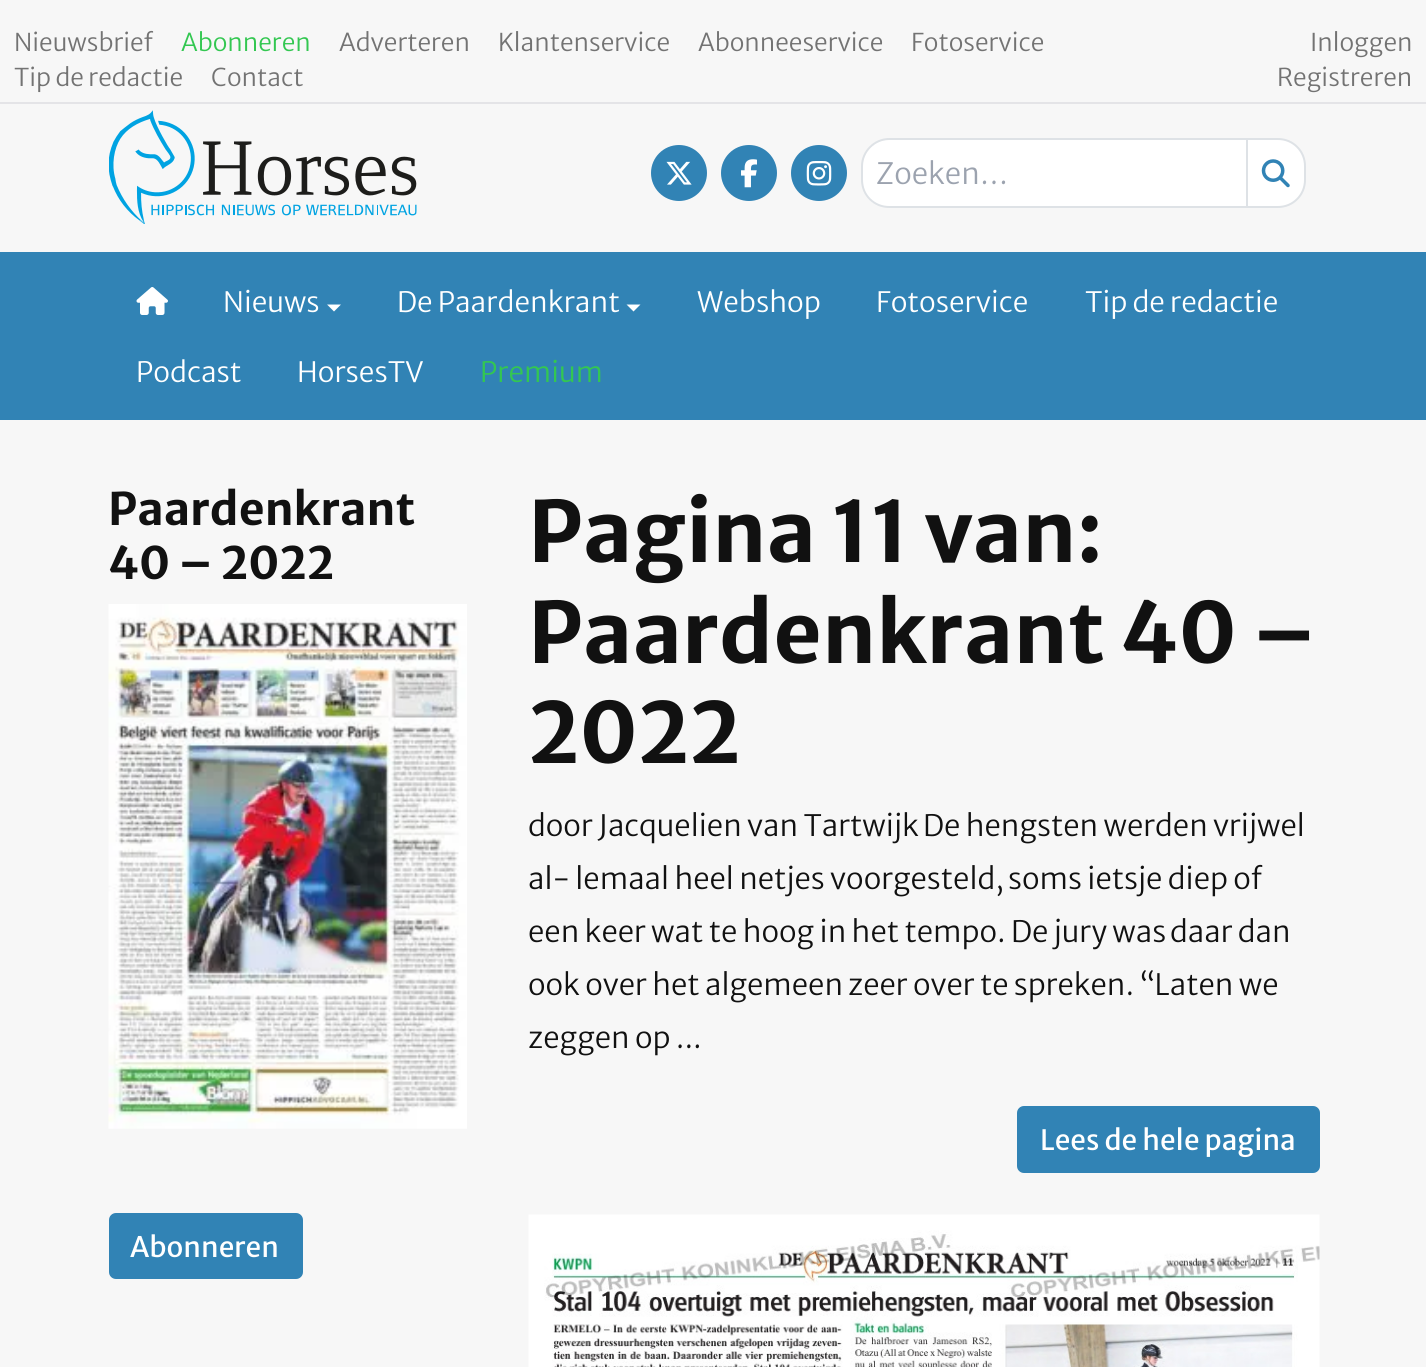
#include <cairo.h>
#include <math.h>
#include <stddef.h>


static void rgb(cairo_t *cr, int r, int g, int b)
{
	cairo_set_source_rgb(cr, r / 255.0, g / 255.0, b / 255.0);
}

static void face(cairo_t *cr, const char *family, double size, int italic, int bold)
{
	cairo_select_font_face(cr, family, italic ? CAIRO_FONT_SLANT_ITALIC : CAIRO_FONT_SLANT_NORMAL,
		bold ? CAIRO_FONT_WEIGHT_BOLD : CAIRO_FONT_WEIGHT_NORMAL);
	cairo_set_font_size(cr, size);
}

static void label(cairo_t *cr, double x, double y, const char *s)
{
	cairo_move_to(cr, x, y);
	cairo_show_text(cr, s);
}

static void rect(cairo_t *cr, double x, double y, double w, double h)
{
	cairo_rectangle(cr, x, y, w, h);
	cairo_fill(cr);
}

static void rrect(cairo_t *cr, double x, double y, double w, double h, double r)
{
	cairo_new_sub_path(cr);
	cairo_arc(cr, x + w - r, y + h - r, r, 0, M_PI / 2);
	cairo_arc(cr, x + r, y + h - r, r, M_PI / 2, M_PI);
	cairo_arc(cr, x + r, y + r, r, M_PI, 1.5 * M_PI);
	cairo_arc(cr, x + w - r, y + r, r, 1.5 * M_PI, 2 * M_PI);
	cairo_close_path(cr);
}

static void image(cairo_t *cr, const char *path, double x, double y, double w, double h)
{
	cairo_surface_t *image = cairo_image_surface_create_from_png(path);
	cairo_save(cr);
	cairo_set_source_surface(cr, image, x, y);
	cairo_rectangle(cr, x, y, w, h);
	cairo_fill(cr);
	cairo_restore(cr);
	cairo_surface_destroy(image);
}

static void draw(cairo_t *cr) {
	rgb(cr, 247, 247, 247);
	cairo_paint(cr);
	rgb(cr, 228, 228, 231);
	rect(cr, 0, 102, 1426, 2);
	face(cr, "Merriweather Sans Light", 24.5, 0, 0);
	rgb(cr, 115, 115, 115);
	label(cr, 14, 51, "Nieuwsbrief");
	rgb(cr, 51, 199, 81);
	label(cr, 181, 51, "Abonneren");
	rgb(cr, 115, 115, 115);
	label(cr, 339, 51, "Adverteren");
	label(cr, 498, 51, "Klantenservice");
	label(cr, 698, 51, "Abonneeservice");
	label(cr, 911, 51, "Fotoservice");
	label(cr, 14, 86, "Tip de redactie");
	label(cr, 211, 86, "Contact");
	label(cr, 1310, 51, "Inloggen");
	label(cr, 1277, 86, "Registreren");
	image(cr, "image0.png", 109, 110, 308, 114);
	rgb(cr, 49, 131, 181);
	cairo_arc(cr, 679, 173, 28, 0, 2 * M_PI);
	cairo_fill(cr);
	image(cr, "image1.png", 666, 161, 26, 24);
	cairo_arc(cr, 749, 173, 28, 0, 2 * M_PI);
	cairo_fill(cr);
	image(cr, "image2.png", 741, 159, 16, 29);
	cairo_arc(cr, 819, 173, 28, 0, 2 * M_PI);
	cairo_fill(cr);
	image(cr, "image3.png", 806, 161, 26, 25);
	rgb(cr, 255, 255, 255);
	cairo_new_path(cr);
	cairo_move_to(cr, 889, 140);
	cairo_line_to(cr, 1246, 140);
	cairo_line_to(cr, 1246, 207);
	cairo_line_to(cr, 889, 207);
	cairo_curve_to(cr, 874.5, 207, 863, 195.5, 863, 181);
	cairo_line_to(cr, 863, 166);
	cairo_curve_to(cr, 863, 151.5, 874.5, 140, 889, 140);
	cairo_close_path(cr);
	cairo_fill(cr);
	rgb(cr, 222, 226, 230);
	cairo_set_fill_rule(cr, CAIRO_FILL_RULE_EVEN_ODD);
	cairo_new_path(cr);
	cairo_move_to(cr, 889, 138);
	cairo_line_to(cr, 1246, 138);
	cairo_line_to(cr, 1246, 208);
	cairo_line_to(cr, 889, 208);
	cairo_curve_to(cr, 874, 208, 861, 196, 861, 180);
	cairo_line_to(cr, 861, 166);
	cairo_curve_to(cr, 861, 151, 874, 138, 889, 138);
	cairo_close_path(cr);
	cairo_move_to(cr, 889, 140);
	cairo_line_to(cr, 1246, 140);
	cairo_line_to(cr, 1246, 206);
	cairo_line_to(cr, 889, 206);
	cairo_curve_to(cr, 875, 206, 863, 195, 863, 180);
	cairo_line_to(cr, 863, 166);
	cairo_curve_to(cr, 863, 152, 875, 140, 889, 140);
	cairo_close_path(cr);
	cairo_fill(cr);
	face(cr, "Merriweather Sans Light", 29.4, 0, 0);
	rgb(cr, 156, 163, 175);
	label(cr, 876, 184, "Zoeken…");
	rgb(cr, 255, 255, 255);
	cairo_new_path(cr);
	cairo_move_to(cr, 1247, 139);
	cairo_line_to(cr, 1278, 139);
	cairo_curve_to(cr, 1293, 139, 1305, 151, 1305, 166);
	cairo_line_to(cr, 1305, 180);
	cairo_curve_to(cr, 1305, 195, 1293, 207, 1278, 207);
	cairo_line_to(cr, 1247, 207);
	cairo_close_path(cr);
	cairo_fill_preserve(cr);
	rgb(cr, 222, 226, 230);
	cairo_stroke(cr);
	image(cr, "image4.png", 1261, 159, 29, 29);
	rgb(cr, 49, 131, 181);
	rect(cr, 0, 252, 1426, 168);
	image(cr, "image5.png", 136, 287, 32, 28);
	face(cr, "Merriweather Sans Light", 28, 0, 0);
	rgb(cr, 255, 255, 255);
	label(cr, 223, 312, "Nieuws");
	cairo_set_fill_rule(cr, CAIRO_FILL_RULE_WINDING);
	cairo_new_path(cr);
	cairo_move_to(cr, 327, 304.5);
	cairo_line_to(cr, 341, 304.5);
	cairo_line_to(cr, 334, 311.5);
	cairo_close_path(cr);
	cairo_fill(cr);
	label(cr, 397, 312, "De Paardenkrant");
	cairo_new_path(cr);
	cairo_move_to(cr, 626.5, 304.5);
	cairo_line_to(cr, 640.5, 304.5);
	cairo_line_to(cr, 633.5, 311.5);
	cairo_close_path(cr);
	cairo_fill(cr);
	label(cr, 697, 312, "Webshop");
	label(cr, 876, 312, "Fotoservice");
	label(cr, 1085, 312, "Tip de redactie");
	label(cr, 136, 382, "Podcast");
	label(cr, 297, 382, "HorsesTV");
	rgb(cr, 51, 199, 81);
	label(cr, 480, 382, "Premium");
	face(cr, "Merriweather Sans", 44.75, 0, 1);
	rgb(cr, 17, 17, 17);
	label(cr, 108, 525, "Paardenkrant");
	label(cr, 108, 579, "40 – 2022");
	image(cr, "image6.png", 108, 604, 359, 525);
	rgb(cr, 49, 131, 181);
	rrect(cr, 110, 1214, 192, 64, 6);
	cairo_fill_preserve(cr);
	cairo_stroke(cr);
	face(cr, "Merriweather Sans", 28, 0, 0);
	rgb(cr, 255, 255, 255);
	label(cr, 130, 1257, "Abonneren");
	face(cr, "Merriweather Sans", 84, 0, 1);
	rgb(cr, 17, 17, 17);
	label(cr, 528, 562, "Pagina 11 van:");
	label(cr, 528, 663, "Paardenkrant 40 –");
	label(cr, 528, 763, "2022");
	face(cr, "Merriweather Sans Light", 29.4, 0, 0);
	label(cr, 528, 836, "door Jacquelien van Tartwijk");
	label(cr, 923, 836, "De hengsten werden vrijwel");
	label(cr, 528, 889, "al- lemaal heel netjes voorgesteld,");
	label(cr, 1008, 889, "soms ietsje diep of");
	label(cr, 528, 942, "een keer wat te hoog in het tempo. De jury was");
	label(cr, 1170, 942, "daar dan");
	label(cr, 528, 995, "ook over het algemeen");
	label(cr, 848, 995, "zeer over te spreken. “Laten we");
	label(cr, 528, 1048, "zeggen op ...");
	rgb(cr, 49, 131, 181);
	rrect(cr, 1018, 1107, 301, 65, 6);
	cairo_fill_preserve(cr);
	cairo_stroke(cr);
	face(cr, "Merriweather Sans", 28, 0, 0);
	rgb(cr, 255, 255, 255);
	label(cr, 1040, 1150, "Lees de hele pagina");
	image(cr, "image7.png", 528, 1214, 792, 153);
}

int main(void) {
	cairo_surface_t *surface = cairo_image_surface_create(CAIRO_FORMAT_RGB24, 1426, 1367);
	cairo_t *cr = cairo_create(surface);
	cairo_font_options_t *options = cairo_font_options_create();
	cairo_font_options_set_hint_metrics(options, CAIRO_HINT_METRICS_OFF);
	cairo_font_options_set_hint_style(options, CAIRO_HINT_STYLE_NONE);
	cairo_set_font_options(cr, options);
	cairo_set_miter_limit(cr, 4);
	draw(cr);
	cairo_surface_write_to_png(surface, "render.png");
	cairo_font_options_destroy(options);
	cairo_destroy(cr);
	cairo_surface_destroy(surface);
	return 0;
}
